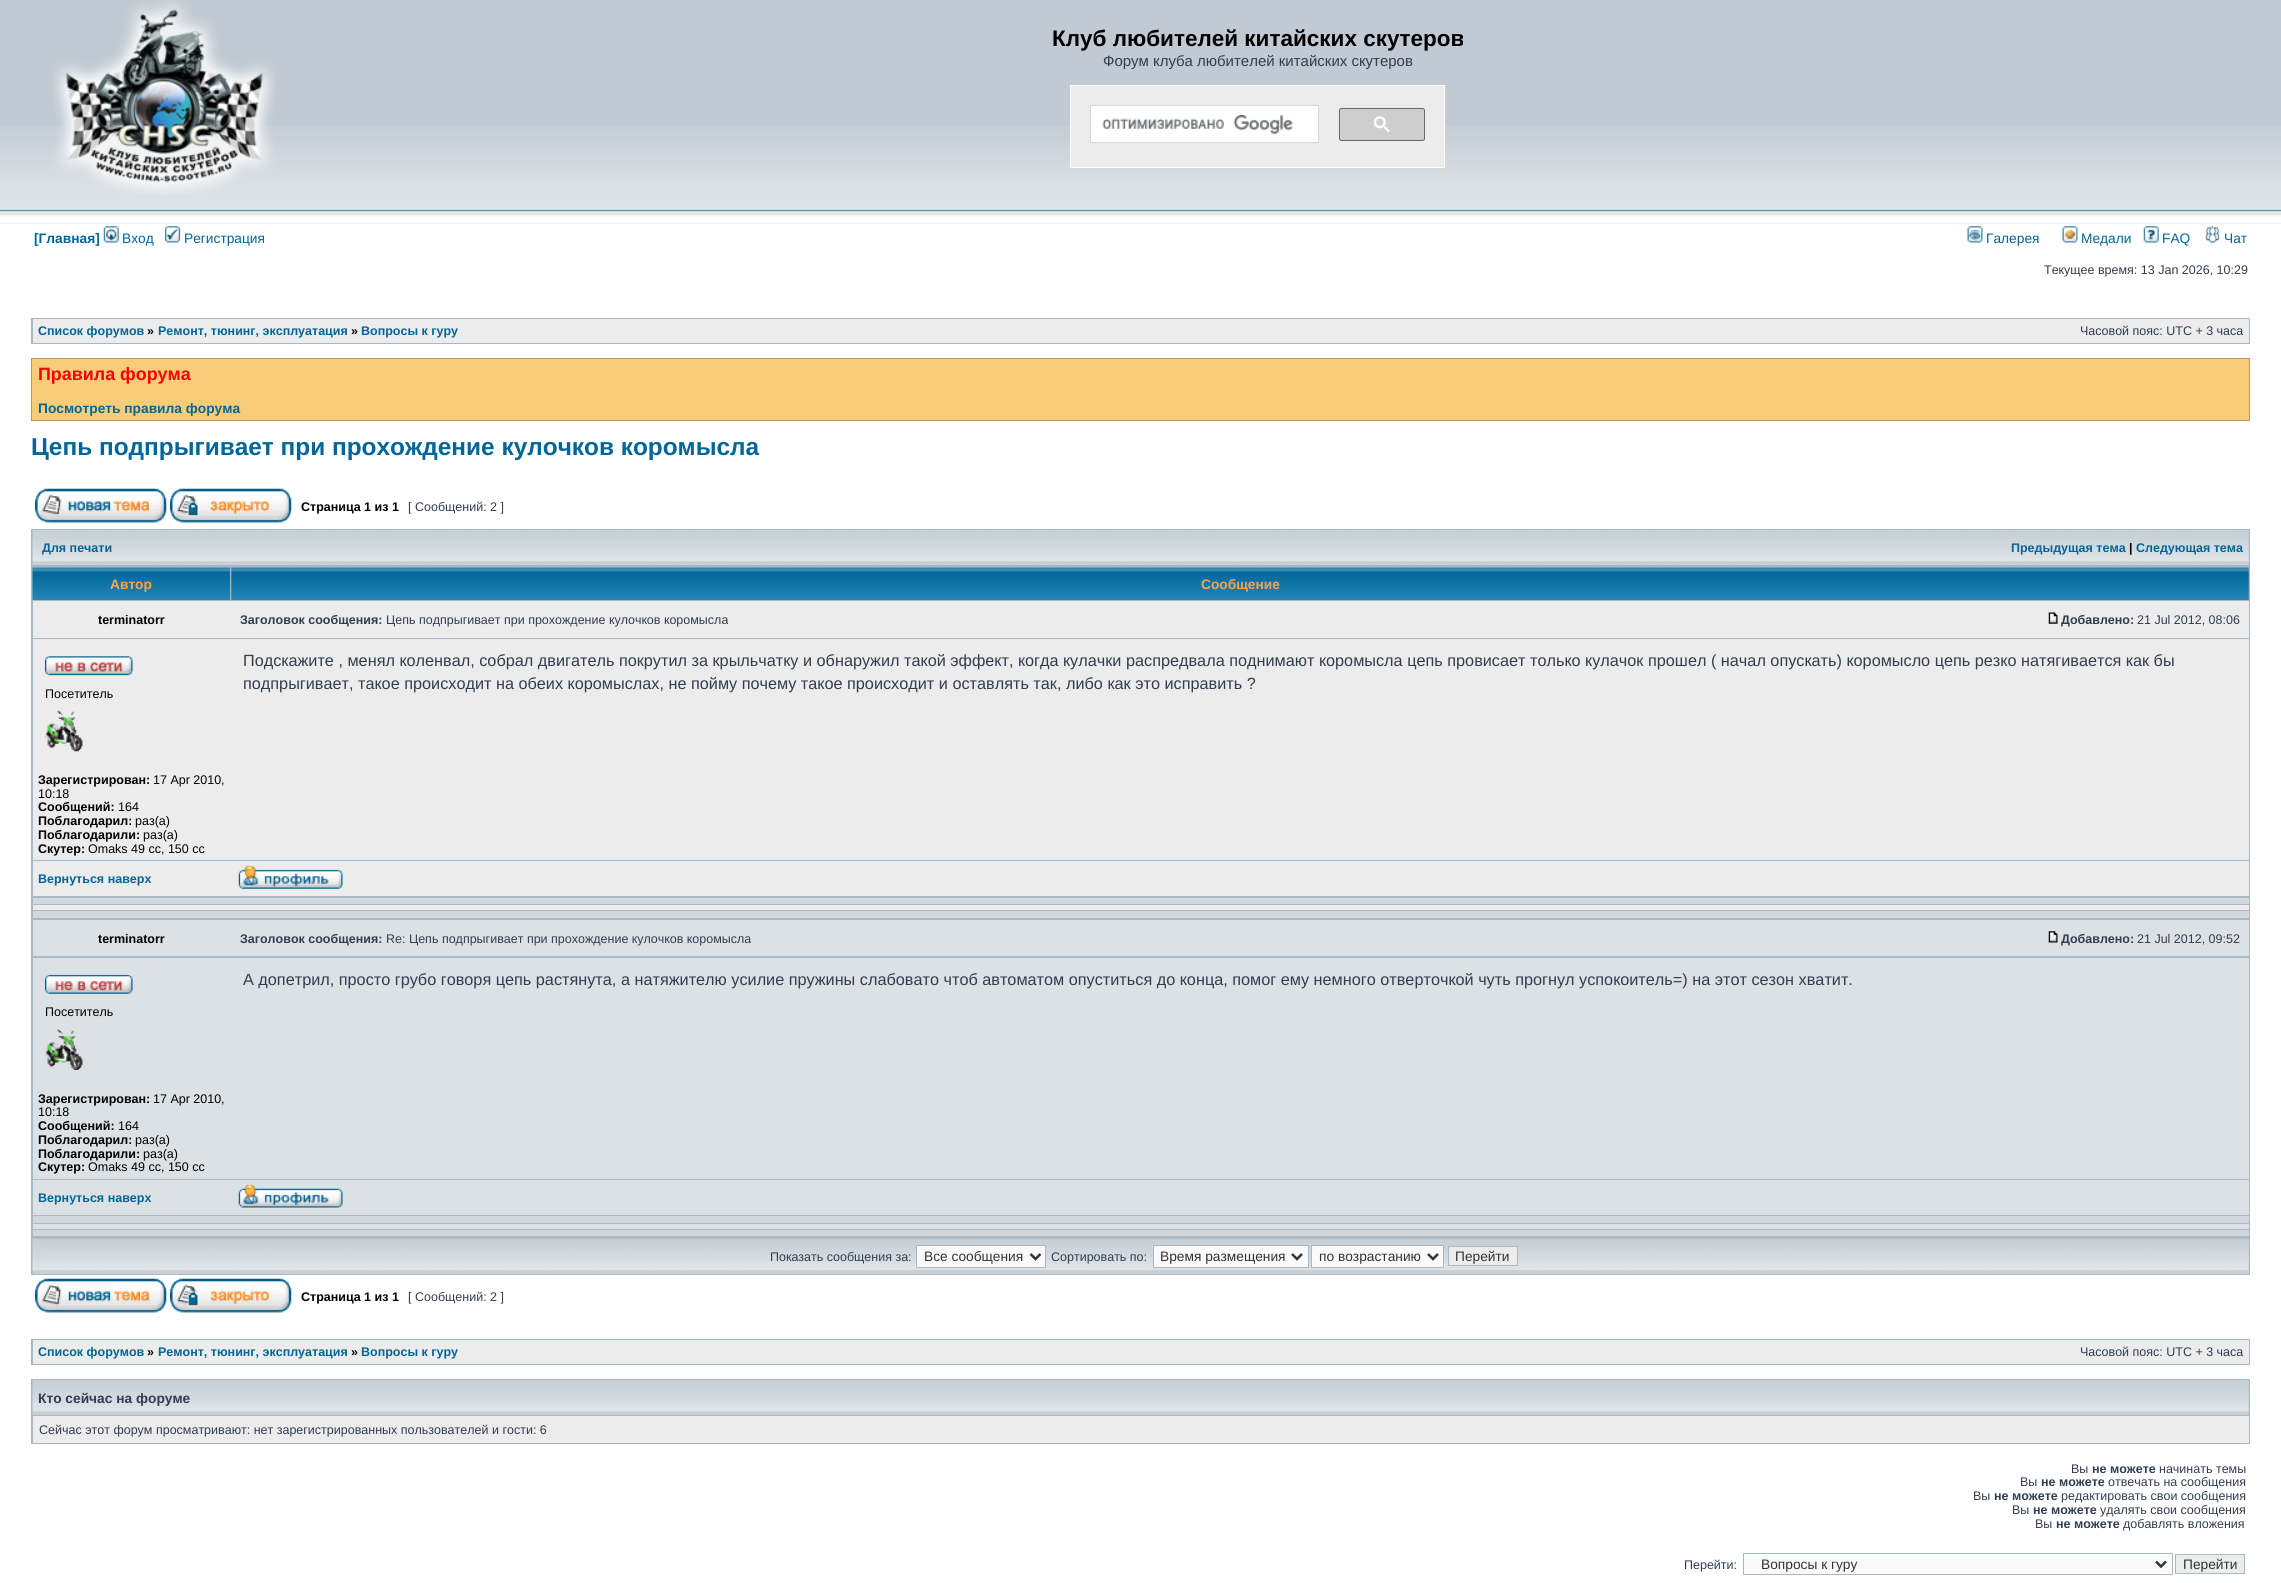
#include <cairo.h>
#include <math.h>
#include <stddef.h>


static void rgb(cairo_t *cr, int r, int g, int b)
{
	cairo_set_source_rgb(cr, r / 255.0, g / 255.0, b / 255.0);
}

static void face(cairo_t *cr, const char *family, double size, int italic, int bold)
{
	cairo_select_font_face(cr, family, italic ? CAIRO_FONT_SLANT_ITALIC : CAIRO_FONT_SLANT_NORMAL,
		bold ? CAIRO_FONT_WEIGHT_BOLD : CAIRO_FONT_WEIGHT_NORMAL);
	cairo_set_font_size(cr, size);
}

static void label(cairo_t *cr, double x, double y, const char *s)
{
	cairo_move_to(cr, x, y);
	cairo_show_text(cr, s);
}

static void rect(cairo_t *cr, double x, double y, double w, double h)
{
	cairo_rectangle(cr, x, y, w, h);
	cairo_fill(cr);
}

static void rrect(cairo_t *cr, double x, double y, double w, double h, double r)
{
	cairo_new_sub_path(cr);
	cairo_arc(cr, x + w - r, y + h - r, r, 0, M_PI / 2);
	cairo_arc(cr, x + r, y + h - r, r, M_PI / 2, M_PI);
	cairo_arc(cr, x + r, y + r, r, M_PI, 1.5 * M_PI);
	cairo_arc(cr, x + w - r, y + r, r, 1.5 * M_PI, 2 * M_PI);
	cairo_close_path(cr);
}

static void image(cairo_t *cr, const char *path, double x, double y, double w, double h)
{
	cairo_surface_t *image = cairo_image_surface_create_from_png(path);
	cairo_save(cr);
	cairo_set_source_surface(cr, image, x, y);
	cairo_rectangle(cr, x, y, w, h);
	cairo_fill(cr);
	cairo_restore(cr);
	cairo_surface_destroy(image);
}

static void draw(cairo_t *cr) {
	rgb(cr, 255, 255, 255);
	cairo_paint(cr);
	rgb(cr, 193, 202, 210);
	rect(cr, 0, 0, 2281, 224);
	image(cr, "image0.png", 0, 126, 2281, 98);
	image(cr, "image1.png", 52, 0, 224, 195);
	face(cr, "Liberation Sans", 22.5, 0, 1);
	rgb(cr, 0, 0, 0);
	label(cr, 1052, 46, "Клуб любителей китайских скутеров");
	face(cr, "Liberation Sans", 15, 0, 0);
	rgb(cr, 50, 61, 79);
	label(cr, 1103, 66, "Форум клуба любителей китайских скутеров");
	rgb(cr, 236, 236, 236);
	cairo_rectangle(cr, 1070.5, 85.5, 374, 82);
	cairo_fill_preserve(cr);
	rgb(cr, 255, 255, 255);
	cairo_set_line_width(cr, 1);
	cairo_stroke(cr);
	cairo_rectangle(cr, 1090.5, 105.5, 228, 37);
	cairo_fill_preserve(cr);
	rgb(cr, 217, 217, 217);
	cairo_stroke(cr);
	image(cr, "image2.png", 1102, 115, 191, 19);
	rgb(cr, 206, 206, 206);
	rrect(cr, 1339.5, 108.5, 85, 32, 2);
	cairo_fill_preserve(cr);
	rgb(cr, 102, 102, 102);
	cairo_stroke(cr);
	image(cr, "image3.png", 1374, 116, 16, 17);
	face(cr, "Liberation Sans", 13.75, 0, 1);
	rgb(cr, 0, 101, 151);
	label(cr, 34, 243, "[Главная]");
	image(cr, "image4.png", 103, 226, 16, 17);
	face(cr, "Liberation Sans", 13.75, 0, 0);
	label(cr, 122, 243, "Вход");
	image(cr, "image5.png", 165, 226, 15, 17);
	label(cr, 184, 243, "Регистрация");
	image(cr, "image6.png", 1967, 226, 16, 17);
	label(cr, 1986, 243, "Галерея");
	image(cr, "image7.png", 2062, 226, 16, 17);
	label(cr, 2081, 243, "Медали");
	image(cr, "image8.png", 2143, 226, 16, 17);
	label(cr, 2162, 243, "FAQ");
	image(cr, "image9.png", 2205, 226, 15, 17);
	label(cr, 2224, 243, "Чат");
	face(cr, "Liberation Sans", 12.5, 0, 0);
	rgb(cr, 50, 61, 79);
	label(cr, 2044, 274, "Текущее время: 13 Jan 2026, 10:29");
	rgb(cr, 169, 184, 194);
	rect(cr, 31, 318, 2219, 26);
	rgb(cr, 236, 236, 236);
	rect(cr, 33, 319, 2216, 24);
	face(cr, "Liberation Sans", 12.5, 0, 1);
	rgb(cr, 0, 101, 151);
	label(cr, 38, 335, "Список форумов");
	rgb(cr, 0, 0, 0);
	label(cr, 147, 335, "»");
	rgb(cr, 0, 101, 151);
	label(cr, 158, 335, "Ремонт, тюнинг, эксплуатация");
	rgb(cr, 0, 0, 0);
	label(cr, 351, 335, "»");
	rgb(cr, 0, 101, 151);
	label(cr, 361, 335, "Вопросы к гуру");
	face(cr, "Liberation Sans", 12.5, 0, 0);
	rgb(cr, 50, 61, 79);
	label(cr, 2080, 335, "Часовой пояс: UTC + 3 часа");
	rgb(cr, 249, 204, 121);
	cairo_rectangle(cr, 31.5, 358.5, 2218, 62);
	cairo_fill_preserve(cr);
	rgb(cr, 187, 152, 96);
	cairo_stroke(cr);
	face(cr, "Liberation Sans", 17.9, 0, 1);
	rgb(cr, 255, 0, 0);
	label(cr, 38, 380, "Правила форума");
	face(cr, "Liberation Sans", 13.75, 0, 1);
	rgb(cr, 0, 101, 151);
	label(cr, 38, 413, "Посмотреть правила форума");
	face(cr, "Liberation Sans", 24.4, 0, 1);
	label(cr, 31, 455, "Цепь подпрыгивает при прохождение кулочков коромысла");
	image(cr, "image10.png", 35, 488, 132, 35);
	image(cr, "image11.png", 170, 488, 122, 35);
	face(cr, "Liberation Sans", 12.5, 0, 1);
	rgb(cr, 0, 0, 0);
	label(cr, 301, 511, "Страница 1 из 1");
	face(cr, "Liberation Sans", 12.5, 0, 0);
	rgb(cr, 50, 61, 79);
	label(cr, 408, 511, "[ Сообщений: 2 ]");
	rgb(cr, 169, 184, 194);
	rect(cr, 31, 529, 2219, 746);
	image(cr, "image12.png", 32, 530, 2217, 35);
	face(cr, "Liberation Sans", 12.5, 0, 1);
	rgb(cr, 0, 101, 151);
	label(cr, 42, 552, "Для печати");
	label(cr, 2011, 552, "Предыдущая тема");
	rgb(cr, 0, 0, 0);
	label(cr, 2129, 552, "|");
	rgb(cr, 0, 101, 151);
	label(cr, 2136, 552, "Следующая тема");
	image(cr, "image13.png", 32, 567, 198, 33);
	face(cr, "Liberation Sans", 13.75, 0, 1);
	rgb(cr, 255, 163, 79);
	label(cr, 110, 589, "Автор");
	image(cr, "image14.png", 231, 567, 2018, 33);
	label(cr, 1201, 589, "Сообщение");
	rgb(cr, 236, 236, 236);
	rect(cr, 33, 601, 2216, 37);
	face(cr, "Liberation Sans", 12.5, 0, 1);
	rgb(cr, 0, 0, 0);
	label(cr, 98, 624, "terminatorr");
	rgb(cr, 50, 61, 79);
	label(cr, 240, 624, "Заголовок сообщения:");
	face(cr, "Liberation Sans", 12.5, 0, 0);
	label(cr, 386, 624, "Цепь подпрыгивает при прохождение кулочков коромысла");
	image(cr, "image15.png", 2048, 612, 10, 12);
	face(cr, "Liberation Sans", 12.5, 0, 1);
	label(cr, 2061, 624, "Добавлено:");
	face(cr, "Liberation Sans", 12.5, 0, 0);
	label(cr, 2137, 624, "21 Jul 2012, 08:06");
	rgb(cr, 236, 236, 236);
	rect(cr, 33, 639, 2216, 221);
	face(cr, "Liberation Sans", 16.25, 0, 0);
	rgb(cr, 50, 61, 79);
	label(cr, 243, 666, "Подскажите , менял коленвал, собрал двигатель покрутил за крыльчатку и обнаружил такой эффект, когда кулачки распредвала поднимают коромысла цепь провисает только кулачок прошел ( начал опускать) коромысло цепь резко натягивается как бы");
	label(cr, 243, 689, "подпрыгивает, такое происходит на обеих коромыслах, не пойму почему такое происходит и оставлять так, либо как это исправить ?");
	image(cr, "image16.png", 45, 656, 88, 20);
	face(cr, "Liberation Sans", 12.5, 0, 0);
	rgb(cr, 0, 0, 0);
	label(cr, 45, 698, "Посетитель");
	image(cr, "image17.png", 45, 710, 38, 42);
	face(cr, "Liberation Sans", 12.5, 0, 1);
	label(cr, 38, 784, "Зарегистрирован:");
	face(cr, "Liberation Sans", 12.5, 0, 0);
	label(cr, 153, 784, "17 Apr 2010,");
	label(cr, 38, 798, "10:18");
	face(cr, "Liberation Sans", 12.5, 0, 1);
	label(cr, 38, 811, "Сообщений:");
	face(cr, "Liberation Sans", 12.5, 0, 0);
	label(cr, 118, 811, "164");
	face(cr, "Liberation Sans", 12.5, 0, 1);
	label(cr, 38, 825, "Поблагодарил:");
	face(cr, "Liberation Sans", 12.5, 0, 0);
	label(cr, 135, 825, "раз(а)");
	face(cr, "Liberation Sans", 12.5, 0, 1);
	label(cr, 38, 839, "Поблагодарили:");
	face(cr, "Liberation Sans", 12.5, 0, 0);
	label(cr, 143, 839, "раз(а)");
	face(cr, "Liberation Sans", 12.5, 0, 1);
	label(cr, 38, 853, "Скутер:");
	face(cr, "Liberation Sans", 12.5, 0, 0);
	label(cr, 88, 853, "Omaks 49 cc, 150 cc");
	rgb(cr, 236, 236, 236);
	rect(cr, 33, 861, 2216, 35);
	face(cr, "Liberation Sans", 12.5, 0, 1);
	rgb(cr, 0, 101, 151);
	label(cr, 38, 883, "Вернуться наверх");
	image(cr, "image18.png", 238, 865, 105, 24);
	rgb(cr, 209, 215, 220);
	rect(cr, 33, 898, 2216, 6);
	rgb(cr, 236, 236, 236);
	rect(cr, 33, 905, 2216, 5);
	rgb(cr, 209, 215, 220);
	rect(cr, 33, 911, 2216, 7);
	rgb(cr, 220, 225, 229);
	rect(cr, 33, 920, 2216, 36);
	rgb(cr, 0, 0, 0);
	label(cr, 98, 943, "terminatorr");
	rgb(cr, 50, 61, 79);
	label(cr, 240, 943, "Заголовок сообщения:");
	face(cr, "Liberation Sans", 12.5, 0, 0);
	label(cr, 386, 943, "Re: Цепь подпрыгивает при прохождение кулочков коромысла");
	image(cr, "image19.png", 2048, 931, 10, 12);
	face(cr, "Liberation Sans", 12.5, 0, 1);
	label(cr, 2061, 943, "Добавлено:");
	face(cr, "Liberation Sans", 12.5, 0, 0);
	label(cr, 2137, 943, "21 Jul 2012, 09:52");
	rgb(cr, 220, 225, 229);
	rect(cr, 33, 958, 2216, 221);
	face(cr, "Liberation Sans", 16.25, 0, 0);
	rgb(cr, 50, 61, 79);
	label(cr, 243, 985, "А допетрил, просто грубо говоря цепь растянута, а натяжителю усилие пружины слабовато чтоб автоматом опуститься до конца, помог ему немного отверточкой чуть прогнул успокоитель=) на этот сезон хватит.");
	image(cr, "image20.png", 45, 974, 88, 20);
	face(cr, "Liberation Sans", 12.5, 0, 0);
	rgb(cr, 0, 0, 0);
	label(cr, 45, 1016, "Посетитель");
	image(cr, "image21.png", 45, 1028, 38, 42);
	face(cr, "Liberation Sans", 12.5, 0, 1);
	label(cr, 38, 1103, "Зарегистрирован:");
	face(cr, "Liberation Sans", 12.5, 0, 0);
	label(cr, 153, 1103, "17 Apr 2010,");
	label(cr, 38, 1116, "10:18");
	face(cr, "Liberation Sans", 12.5, 0, 1);
	label(cr, 38, 1130, "Сообщений:");
	face(cr, "Liberation Sans", 12.5, 0, 0);
	label(cr, 118, 1130, "164");
	face(cr, "Liberation Sans", 12.5, 0, 1);
	label(cr, 38, 1144, "Поблагодарил:");
	face(cr, "Liberation Sans", 12.5, 0, 0);
	label(cr, 135, 1144, "раз(а)");
	face(cr, "Liberation Sans", 12.5, 0, 1);
	label(cr, 38, 1158, "Поблагодарили:");
	face(cr, "Liberation Sans", 12.5, 0, 0);
	label(cr, 143, 1158, "раз(а)");
	face(cr, "Liberation Sans", 12.5, 0, 1);
	label(cr, 38, 1171, "Скутер:");
	face(cr, "Liberation Sans", 12.5, 0, 0);
	label(cr, 88, 1171, "Omaks 49 cc, 150 cc");
	rgb(cr, 220, 225, 229);
	rect(cr, 33, 1180, 2216, 35);
	face(cr, "Liberation Sans", 12.5, 0, 1);
	rgb(cr, 0, 101, 151);
	label(cr, 38, 1202, "Вернуться наверх");
	image(cr, "image22.png", 238, 1184, 105, 24);
	rgb(cr, 209, 215, 220);
	rect(cr, 33, 1216, 2216, 7);
	rgb(cr, 220, 225, 229);
	rect(cr, 33, 1224, 2216, 5);
	rgb(cr, 209, 215, 220);
	rect(cr, 33, 1230, 2216, 6);
	rgb(cr, 199, 208, 215);
	rect(cr, 33, 1239, 2216, 35);
	image(cr, "image23.png", 32, 1238, 2217, 36);
	face(cr, "Liberation Sans", 12.5, 0, 0);
	rgb(cr, 50, 61, 79);
	label(cr, 770, 1261, "Показать сообщения за:");
	rgb(cr, 250, 250, 250);
	cairo_rectangle(cr, 916.5, 1245.5, 129, 22);
	cairo_fill_preserve(cr);
	rgb(cr, 169, 184, 194);
	cairo_stroke(cr);
	cairo_new_path(cr);
	cairo_move_to(cr, 1030.5, 1254);
	cairo_line_to(cr, 1035.5, 1259);
	cairo_line_to(cr, 1040.5, 1254);
	rgb(cr, 51, 51, 51);
	cairo_set_line_width(cr, 2.5);
	cairo_stroke(cr);
	face(cr, "Liberation Sans", 13.75, 0, 0);
	label(cr, 924, 1261, "Все сообщения");
	face(cr, "Liberation Sans", 12.5, 0, 0);
	rgb(cr, 50, 61, 79);
	label(cr, 1051, 1261, "Сортировать по:");
	rgb(cr, 250, 250, 250);
	cairo_rectangle(cr, 1153.5, 1245.5, 155, 22);
	cairo_fill_preserve(cr);
	rgb(cr, 169, 184, 194);
	cairo_set_line_width(cr, 1);
	cairo_stroke(cr);
	cairo_new_path(cr);
	cairo_move_to(cr, 1292, 1254);
	cairo_line_to(cr, 1297, 1259);
	cairo_line_to(cr, 1302, 1254);
	rgb(cr, 51, 51, 51);
	cairo_set_line_width(cr, 2.5);
	cairo_stroke(cr);
	face(cr, "Liberation Sans", 13.75, 0, 0);
	label(cr, 1160, 1261, "Время размещения");
	rgb(cr, 250, 250, 250);
	cairo_rectangle(cr, 1311.5, 1245.5, 132, 22);
	cairo_fill_preserve(cr);
	rgb(cr, 169, 184, 194);
	cairo_set_line_width(cr, 1);
	cairo_stroke(cr);
	cairo_new_path(cr);
	cairo_move_to(cr, 1428, 1254);
	cairo_line_to(cr, 1433, 1259);
	cairo_line_to(cr, 1438, 1254);
	rgb(cr, 51, 51, 51);
	cairo_set_line_width(cr, 2.5);
	cairo_stroke(cr);
	label(cr, 1319, 1261, "по возрастанию");
	rgb(cr, 236, 236, 236);
	cairo_rectangle(cr, 1448.5, 1246.5, 69, 19);
	cairo_fill_preserve(cr);
	rgb(cr, 169, 184, 194);
	cairo_set_line_width(cr, 1);
	cairo_stroke(cr);
	rgb(cr, 51, 51, 51);
	label(cr, 1455, 1261, "Перейти");
	image(cr, "image10.png", 35, 1278, 132, 35);
	image(cr, "image11.png", 170, 1278, 122, 35);
	face(cr, "Liberation Sans", 12.5, 0, 1);
	rgb(cr, 0, 0, 0);
	label(cr, 301, 1301, "Страница 1 из 1");
	face(cr, "Liberation Sans", 12.5, 0, 0);
	rgb(cr, 50, 61, 79);
	label(cr, 408, 1301, "[ Сообщений: 2 ]");
	rgb(cr, 169, 184, 194);
	rect(cr, 31, 1339, 2219, 26);
	rgb(cr, 236, 236, 236);
	rect(cr, 33, 1340, 2216, 24);
	face(cr, "Liberation Sans", 12.5, 0, 1);
	rgb(cr, 0, 101, 151);
	label(cr, 38, 1356, "Список форумов");
	rgb(cr, 0, 0, 0);
	label(cr, 147, 1356, "»");
	rgb(cr, 0, 101, 151);
	label(cr, 158, 1356, "Ремонт, тюнинг, эксплуатация");
	rgb(cr, 0, 0, 0);
	label(cr, 351, 1356, "»");
	rgb(cr, 0, 101, 151);
	label(cr, 361, 1356, "Вопросы к гуру");
	face(cr, "Liberation Sans", 12.5, 0, 0);
	rgb(cr, 50, 61, 79);
	label(cr, 2080, 1356, "Часовой пояс: UTC + 3 часа");
	rgb(cr, 169, 184, 194);
	rect(cr, 31, 1379, 2219, 65);
	image(cr, "image12.png", 32, 1380, 2217, 35);
	face(cr, "Liberation Sans", 13.75, 0, 1);
	rgb(cr, 50, 61, 79);
	label(cr, 38, 1403, "Кто сейчас на форуме");
	rgb(cr, 236, 236, 236);
	rect(cr, 33, 1416, 2216, 27);
	face(cr, "Liberation Sans", 12.5, 0, 0);
	rgb(cr, 50, 61, 79);
	label(cr, 39, 1434, "Сейчас этот форум просматривают: нет зарегистрированных пользователей и гости: 6");
	label(cr, 2071, 1473, "Вы");
	face(cr, "Liberation Sans", 12.5, 0, 1);
	label(cr, 2092, 1473, "не можете");
	face(cr, "Liberation Sans", 12.5, 0, 0);
	label(cr, 2159, 1473, "начинать темы");
	label(cr, 2020, 1486, "Вы");
	face(cr, "Liberation Sans", 12.5, 0, 1);
	label(cr, 2041, 1486, "не можете");
	face(cr, "Liberation Sans", 12.5, 0, 0);
	label(cr, 2108, 1486, "отвечать на сообщения");
	label(cr, 1973, 1500, "Вы");
	face(cr, "Liberation Sans", 12.5, 0, 1);
	label(cr, 1994, 1500, "не можете");
	face(cr, "Liberation Sans", 12.5, 0, 0);
	label(cr, 2061, 1500, "редактировать свои сообщения");
	label(cr, 2012, 1514, "Вы");
	face(cr, "Liberation Sans", 12.5, 0, 1);
	label(cr, 2033, 1514, "не можете");
	face(cr, "Liberation Sans", 12.5, 0, 0);
	label(cr, 2100, 1514, "удалять свои сообщения");
	label(cr, 2035, 1528, "Вы");
	face(cr, "Liberation Sans", 12.5, 0, 1);
	label(cr, 2056, 1528, "не можете");
	face(cr, "Liberation Sans", 12.5, 0, 0);
	label(cr, 2123, 1528, "добавлять вложения");
	label(cr, 1684, 1569, "Перейти:");
	rgb(cr, 250, 250, 250);
	cairo_rectangle(cr, 1743.5, 1553.5, 429, 21);
	cairo_fill_preserve(cr);
	rgb(cr, 169, 184, 194);
	cairo_stroke(cr);
	cairo_new_path(cr);
	cairo_move_to(cr, 2156, 1561.5);
	cairo_line_to(cr, 2161, 1566.5);
	cairo_line_to(cr, 2166, 1561.5);
	rgb(cr, 51, 51, 51);
	cairo_set_line_width(cr, 2.5);
	cairo_stroke(cr);
	face(cr, "Liberation Sans", 13.75, 0, 0);
	label(cr, 1761, 1569, "Вопросы к гуру");
	rgb(cr, 236, 236, 236);
	cairo_rectangle(cr, 2175.5, 1554.5, 69, 19);
	cairo_fill_preserve(cr);
	rgb(cr, 169, 184, 194);
	cairo_set_line_width(cr, 1);
	cairo_stroke(cr);
	rgb(cr, 51, 51, 51);
	label(cr, 2183, 1569, "Перейти");
}

int main(void) {
	cairo_surface_t *surface = cairo_image_surface_create(CAIRO_FORMAT_RGB24, 2281, 1583);
	cairo_t *cr = cairo_create(surface);
	cairo_font_options_t *options = cairo_font_options_create();
	cairo_font_options_set_hint_metrics(options, CAIRO_HINT_METRICS_OFF);
	cairo_font_options_set_hint_style(options, CAIRO_HINT_STYLE_NONE);
	cairo_set_font_options(cr, options);
	cairo_set_miter_limit(cr, 4);
	draw(cr);
	cairo_surface_write_to_png(surface, "render.png");
	cairo_font_options_destroy(options);
	cairo_destroy(cr);
	cairo_surface_destroy(surface);
	return 0;
}
